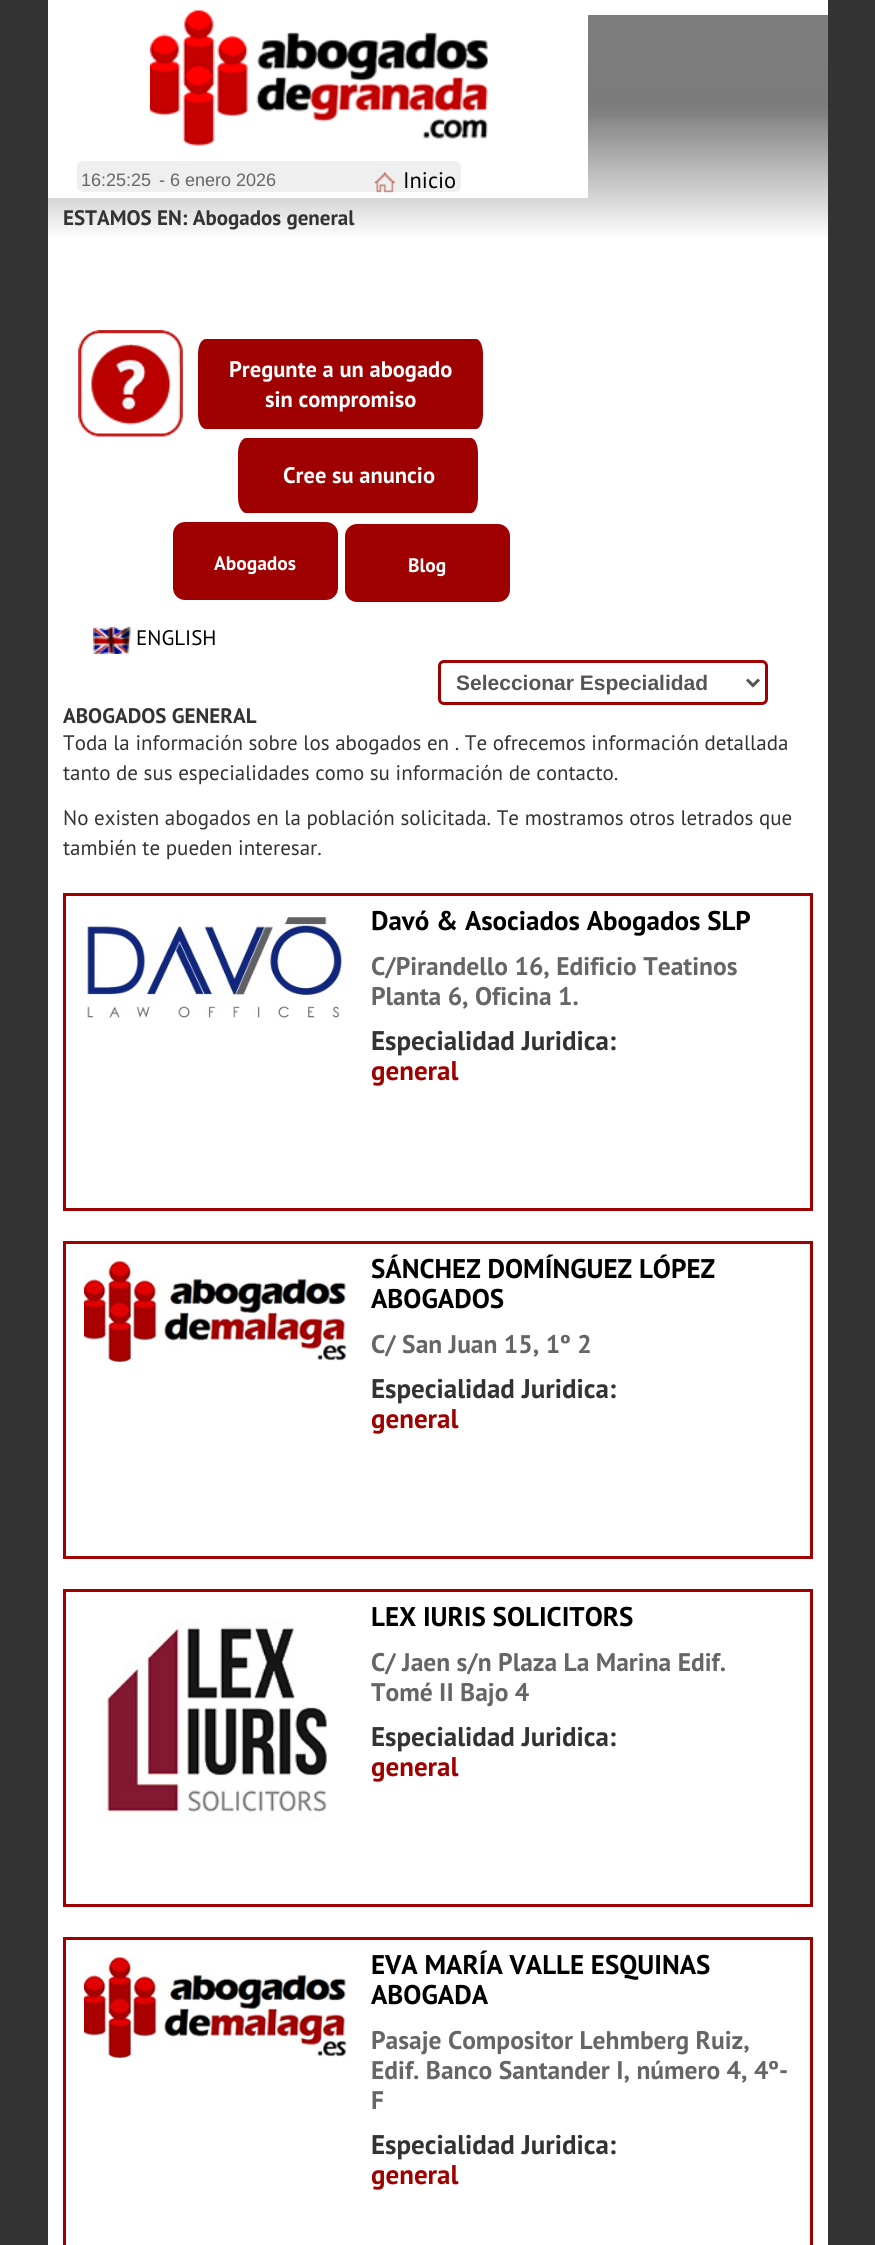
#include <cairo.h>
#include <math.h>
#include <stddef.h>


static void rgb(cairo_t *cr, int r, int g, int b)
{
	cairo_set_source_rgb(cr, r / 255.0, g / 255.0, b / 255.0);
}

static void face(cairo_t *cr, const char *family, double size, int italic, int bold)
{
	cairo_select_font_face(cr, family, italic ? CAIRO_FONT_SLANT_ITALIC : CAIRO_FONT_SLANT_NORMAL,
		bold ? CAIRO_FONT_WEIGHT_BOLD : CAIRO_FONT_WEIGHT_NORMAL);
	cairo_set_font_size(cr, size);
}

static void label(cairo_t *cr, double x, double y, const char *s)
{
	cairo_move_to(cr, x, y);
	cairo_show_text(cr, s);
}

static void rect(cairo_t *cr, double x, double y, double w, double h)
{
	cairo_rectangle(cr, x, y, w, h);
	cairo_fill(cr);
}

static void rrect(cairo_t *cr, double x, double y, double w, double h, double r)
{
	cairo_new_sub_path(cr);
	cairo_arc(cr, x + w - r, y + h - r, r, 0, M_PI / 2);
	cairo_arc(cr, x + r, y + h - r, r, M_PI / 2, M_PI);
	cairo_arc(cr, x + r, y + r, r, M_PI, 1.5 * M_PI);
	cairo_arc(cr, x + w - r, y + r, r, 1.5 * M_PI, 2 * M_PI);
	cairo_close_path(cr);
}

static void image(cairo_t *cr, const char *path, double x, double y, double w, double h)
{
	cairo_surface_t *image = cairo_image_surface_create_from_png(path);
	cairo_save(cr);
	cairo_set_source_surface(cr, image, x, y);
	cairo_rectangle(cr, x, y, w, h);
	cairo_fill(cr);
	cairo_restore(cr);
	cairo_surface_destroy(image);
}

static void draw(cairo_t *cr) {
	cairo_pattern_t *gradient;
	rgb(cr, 51, 51, 51);
	cairo_paint(cr);
	rgb(cr, 255, 255, 255);
	rect(cr, 48, 0, 780, 2245);
	gradient = cairo_pattern_create_linear(438, 15, 438, 240);
	cairo_pattern_add_color_stop_rgba(gradient, 0.17, 0.49, 0.49, 0.49, 1);
	cairo_pattern_add_color_stop_rgba(gradient, 0.39, 0.482, 0.482, 0.482, 1);
	cairo_pattern_add_color_stop_rgba(gradient, 0.45, 0.51, 0.51, 0.51, 1);
	cairo_pattern_add_color_stop_rgba(gradient, 0.47, 0.541, 0.541, 0.541, 1);
	cairo_pattern_add_color_stop_rgba(gradient, 1, 1, 1, 1, 1);
	cairo_set_source(cr, gradient);
	cairo_pattern_destroy(gradient);
	rect(cr, 48, 15, 780, 222);
	rgb(cr, 255, 255, 255);
	rect(cr, 48, 15, 540, 183);
	image(cr, "image0.png", 150, 10, 338, 136);
	rgb(cr, 239, 239, 239);
	rrect(cr, 77, 161, 384, 31, 6);
	cairo_fill(cr);
	face(cr, "Liberation Sans", 18, 0, 0);
	rgb(cr, 102, 102, 102);
	label(cr, 81, 186, "16:25:25");
	label(cr, 159, 186, "- 6 enero 2026");
	image(cr, "image1.png", 374, 172, 21, 21);
	face(cr, "PT Sans", 22.5, 0, 0);
	rgb(cr, 0, 0, 0);
	label(cr, 403, 188, "Inicio");
	face(cr, "PT Sans", 21, 0, 1);
	rgb(cr, 51, 51, 51);
	label(cr, 63, 225, "ESTAMOS EN: Abogados general");
	image(cr, "image2.png", 78, 330, 105, 107);
	rgb(cr, 159, 1, 0);
	cairo_new_path(cr);
	cairo_move_to(cr, 206, 339);
	cairo_line_to(cr, 476, 339);
	cairo_curve_to(cr, 480, 339, 483, 346, 483, 354);
	cairo_line_to(cr, 483, 414);
	cairo_curve_to(cr, 483, 422, 480, 429, 476, 429);
	cairo_line_to(cr, 206, 429);
	cairo_curve_to(cr, 201, 429, 198, 422, 198, 414);
	cairo_line_to(cr, 198, 354);
	cairo_curve_to(cr, 198, 346, 201, 339, 206, 339);
	cairo_close_path(cr);
	cairo_fill(cr);
	face(cr, "PT Sans", 22.5, 0, 1);
	rgb(cr, 255, 255, 255);
	label(cr, 229, 377, "Pregunte a un abogado");
	label(cr, 265, 407, "sin compromiso");
	rgb(cr, 159, 1, 0);
	cairo_new_path(cr);
	cairo_move_to(cr, 246, 438);
	cairo_line_to(cr, 471, 438);
	cairo_curve_to(cr, 475, 438, 478, 445, 478, 453);
	cairo_line_to(cr, 478, 498);
	cairo_curve_to(cr, 478, 506, 475, 513, 471, 513);
	cairo_line_to(cr, 246, 513);
	cairo_curve_to(cr, 242, 513, 238, 506, 238, 498);
	cairo_line_to(cr, 238, 453);
	cairo_curve_to(cr, 238, 445, 242, 438, 246, 438);
	cairo_close_path(cr);
	cairo_fill(cr);
	rgb(cr, 255, 255, 255);
	label(cr, 283, 483, "Cree su anuncio");
	rgb(cr, 159, 1, 0);
	rrect(cr, 173, 522, 165, 78, 12);
	cairo_fill(cr);
	face(cr, "PT Sans", 19.5, 0, 1);
	rgb(cr, 255, 255, 255);
	label(cr, 214, 570, "Abogados");
	rgb(cr, 159, 1, 0);
	rrect(cr, 345, 524, 165, 78, 12);
	cairo_fill(cr);
	rgb(cr, 255, 255, 255);
	label(cr, 408, 572, "Blog");
	image(cr, "image3.png", 93, 627, 38, 27);
	face(cr, "PT Sans", 21, 0, 0);
	rgb(cr, 0, 0, 0);
	label(cr, 136, 645, "ENGLISH");
	rrect(cr, 439.5, 661.5, 327, 42, 4.5);
	rgb(cr, 159, 1, 0);
	cairo_set_line_width(cr, 3);
	cairo_stroke(cr);
	cairo_new_path(cr);
	cairo_move_to(cr, 747, 679.5);
	cairo_line_to(cr, 753, 685.5);
	cairo_line_to(cr, 759, 679.5);
	rgb(cr, 85, 85, 85);
	cairo_stroke(cr);
	face(cr, "Liberation Sans", 21, 0, 1);
	label(cr, 456, 690, "Seleccionar Especialidad");
	face(cr, "PT Sans", 21, 0, 1);
	rgb(cr, 51, 51, 51);
	label(cr, 63, 723, "ABOGADOS GENERAL");
	face(cr, "PT Sans", 21, 0, 0);
	label(cr, 63, 750, "Toda la información sobre los abogados en . Te ofrecemos información detallada");
	label(cr, 63, 780, "tanto de sus especialidades como su información de contacto.");
	label(cr, 63, 825, "No existen abogados en la población solicitada. Te mostramos otros letrados que");
	label(cr, 63, 855, "también te pueden interesar.");
	cairo_rectangle(cr, 64.5, 894.5, 747, 315);
	rgb(cr, 159, 1, 0);
	cairo_stroke(cr);
	image(cr, "image4.png", 84, 914, 263, 104);
	face(cr, "PT Sans", 27, 0, 1);
	rgb(cr, 0, 0, 0);
	label(cr, 371, 930, "Davó & Asociados Abogados SLP");
	face(cr, "PT Sans", 25.5, 0, 1);
	rgb(cr, 102, 102, 102);
	label(cr, 371, 975, "C/Pirandello 16, Edificio Teatinos");
	label(cr, 371, 1005, "Planta 6, Oficina 1.");
	face(cr, "PT Sans", 27, 0, 1);
	rgb(cr, 51, 51, 51);
	label(cr, 371, 1050, "Especialidad Juridica:");
	rgb(cr, 159, 1, 0);
	label(cr, 371, 1080, "general");
	cairo_rectangle(cr, 64.5, 1242.5, 747, 315);
	cairo_stroke(cr);
	image(cr, "image5.png", 84, 1261, 263, 101);
	rgb(cr, 0, 0, 0);
	label(cr, 371, 1278, "SÁNCHEZ DOMÍNGUEZ LÓPEZ");
	label(cr, 371, 1308, "ABOGADOS");
	face(cr, "PT Sans", 25.5, 0, 1);
	rgb(cr, 102, 102, 102);
	label(cr, 371, 1353, "C/ San Juan 15, 1º 2");
	face(cr, "PT Sans", 27, 0, 1);
	rgb(cr, 51, 51, 51);
	label(cr, 371, 1398, "Especialidad Juridica:");
	rgb(cr, 159, 1, 0);
	label(cr, 371, 1428, "general");
	cairo_rectangle(cr, 64.5, 1590.5, 747, 315);
	cairo_stroke(cr);
	image(cr, "image6.png", 105, 1620, 223, 199);
	rgb(cr, 0, 0, 0);
	label(cr, 371, 1626, "LEX IURIS SOLICITORS");
	face(cr, "PT Sans", 25.5, 0, 1);
	rgb(cr, 102, 102, 102);
	label(cr, 371, 1671, "C/ Jaen s/n Plaza La Marina Edif.");
	label(cr, 371, 1701, "Tomé II Bajo 4");
	face(cr, "PT Sans", 27, 0, 1);
	rgb(cr, 51, 51, 51);
	label(cr, 371, 1746, "Especialidad Juridica:");
	rgb(cr, 159, 1, 0);
	label(cr, 371, 1776, "general");
	cairo_rectangle(cr, 64.5, 1938.5, 747, 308);
	cairo_stroke(cr);
	image(cr, "image7.png", 84, 1957, 263, 101);
	rgb(cr, 0, 0, 0);
	label(cr, 371, 1974, "EVA MARÍA VALLE ESQUINAS");
	label(cr, 371, 2004, "ABOGADA");
	face(cr, "PT Sans", 25.5, 0, 1);
	rgb(cr, 102, 102, 102);
	label(cr, 371, 2049, "Pasaje Compositor Lehmberg Ruiz,");
	label(cr, 371, 2079, "Edif. Banco Santander I, número 4, 4º-");
	label(cr, 371, 2109, "F");
	face(cr, "PT Sans", 27, 0, 1);
	rgb(cr, 51, 51, 51);
	label(cr, 371, 2154, "Especialidad Juridica:");
	rgb(cr, 159, 1, 0);
	label(cr, 371, 2184, "general");
}

int main(void) {
	cairo_surface_t *surface = cairo_image_surface_create(CAIRO_FORMAT_RGB24, 875, 2245);
	cairo_t *cr = cairo_create(surface);
	cairo_font_options_t *options = cairo_font_options_create();
	cairo_font_options_set_hint_metrics(options, CAIRO_HINT_METRICS_OFF);
	cairo_font_options_set_hint_style(options, CAIRO_HINT_STYLE_NONE);
	cairo_set_font_options(cr, options);
	cairo_set_miter_limit(cr, 4);
	draw(cr);
	cairo_surface_write_to_png(surface, "render.png");
	cairo_font_options_destroy(options);
	cairo_destroy(cr);
	cairo_surface_destroy(surface);
	return 0;
}
